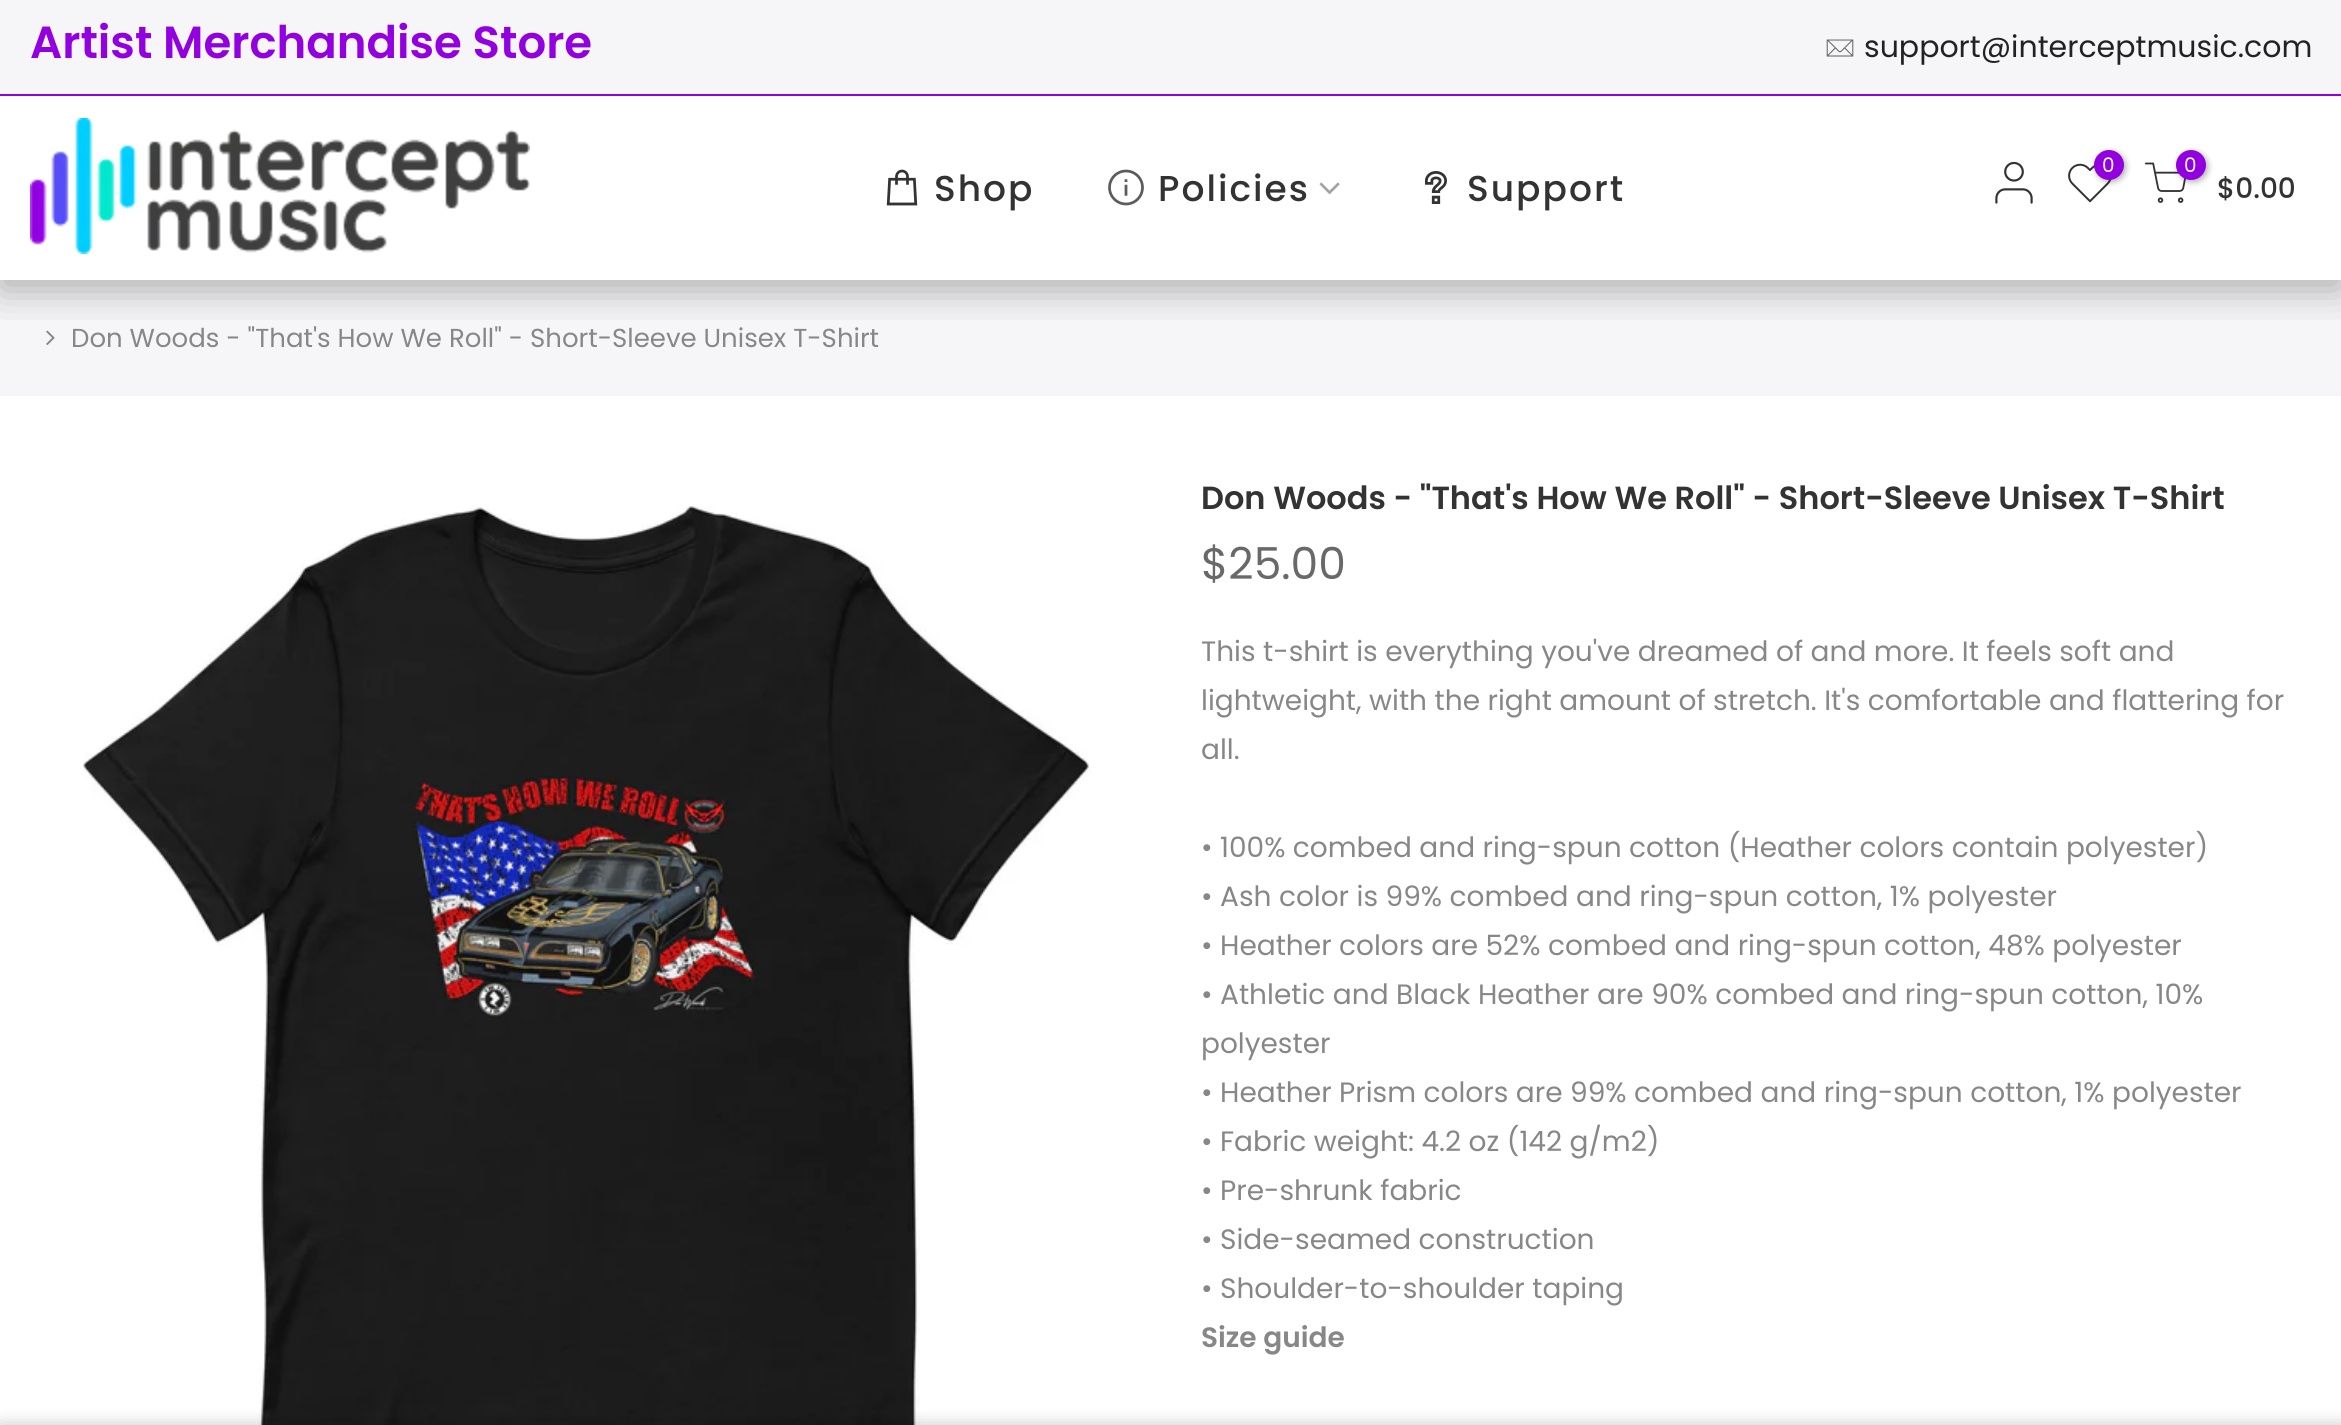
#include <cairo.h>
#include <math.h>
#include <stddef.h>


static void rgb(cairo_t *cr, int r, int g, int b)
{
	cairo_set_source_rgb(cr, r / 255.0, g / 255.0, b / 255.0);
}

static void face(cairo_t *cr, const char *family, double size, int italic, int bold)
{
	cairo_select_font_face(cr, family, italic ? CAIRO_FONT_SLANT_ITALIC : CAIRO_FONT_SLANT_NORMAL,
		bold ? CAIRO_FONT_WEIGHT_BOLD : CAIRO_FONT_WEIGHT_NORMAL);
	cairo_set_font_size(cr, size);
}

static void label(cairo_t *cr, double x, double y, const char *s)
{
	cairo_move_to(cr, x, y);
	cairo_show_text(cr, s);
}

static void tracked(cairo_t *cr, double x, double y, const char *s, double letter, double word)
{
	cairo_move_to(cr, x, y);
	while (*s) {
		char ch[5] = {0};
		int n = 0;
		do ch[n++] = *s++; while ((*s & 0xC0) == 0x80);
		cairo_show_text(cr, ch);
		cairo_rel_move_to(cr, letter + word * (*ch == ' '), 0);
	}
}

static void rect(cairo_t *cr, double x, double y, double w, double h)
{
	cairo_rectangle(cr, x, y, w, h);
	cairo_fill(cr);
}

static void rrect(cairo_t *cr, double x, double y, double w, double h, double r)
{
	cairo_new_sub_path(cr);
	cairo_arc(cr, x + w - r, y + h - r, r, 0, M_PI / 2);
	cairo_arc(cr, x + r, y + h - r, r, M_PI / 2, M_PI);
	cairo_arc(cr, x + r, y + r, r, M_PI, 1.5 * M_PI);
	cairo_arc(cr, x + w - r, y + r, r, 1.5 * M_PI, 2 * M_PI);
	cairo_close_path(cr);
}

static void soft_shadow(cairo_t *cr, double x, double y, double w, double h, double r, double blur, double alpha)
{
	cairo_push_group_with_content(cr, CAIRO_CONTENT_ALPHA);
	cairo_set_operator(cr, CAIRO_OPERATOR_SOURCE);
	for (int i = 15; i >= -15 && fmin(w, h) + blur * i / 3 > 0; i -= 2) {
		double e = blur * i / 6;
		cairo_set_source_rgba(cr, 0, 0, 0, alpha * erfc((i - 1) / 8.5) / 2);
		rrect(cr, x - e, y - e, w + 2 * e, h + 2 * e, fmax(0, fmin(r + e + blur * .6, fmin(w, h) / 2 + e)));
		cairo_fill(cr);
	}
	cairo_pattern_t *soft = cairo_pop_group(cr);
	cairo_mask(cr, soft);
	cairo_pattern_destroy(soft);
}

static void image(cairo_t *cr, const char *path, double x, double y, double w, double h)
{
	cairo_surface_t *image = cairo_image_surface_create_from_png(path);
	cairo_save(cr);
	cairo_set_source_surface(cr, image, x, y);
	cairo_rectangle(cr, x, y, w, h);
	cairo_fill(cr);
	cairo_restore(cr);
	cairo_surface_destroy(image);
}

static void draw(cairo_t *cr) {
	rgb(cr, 255, 255, 255);
	cairo_paint(cr);
	rgb(cr, 246, 246, 248);
	rect(cr, 0, 280, 2341, 116);
	image(cr, "image9.png", 46, 330, 9, 15);
	cairo_save(cr);
	cairo_rectangle(cr, 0, 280, 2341, 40);
	cairo_clip(cr);
	rgb(cr, 0, 0, 0);
	soft_shadow(cr, 0, 10, 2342, 280, 0, 20, 0.3);
	cairo_restore(cr);
	rect(cr, 0, 0, 2341, 94);
	rgb(cr, 146, 0, 224);
	rect(cr, 0, 94, 2341, 2);
	face(cr, "Poppins SemiBold", 45, 0, 0);
	label(cr, 30, 58, "Artist Merchandise Store");
	image(cr, "image0.png", 1826, 39, 28, 18);
	face(cr, "Poppins", 30, 0, 0);
	rgb(cr, 34, 34, 34);
	label(cr, 1864, 57, "support@interceptmusic.com");
	image(cr, "image1.png", 30, 118, 500, 136);
	image(cr, "image2.png", 886, 169, 32, 37);
	face(cr, "Poppins Medium", 36, 0, 0);
	rgb(cr, 51, 51, 51);
	tracked(cr, 934, 201, "Shop", 2, 0);
	image(cr, "image3.png", 1108, 169, 36, 37);
	tracked(cr, 1158, 201, "Policies", 2, 0);
	image(cr, "image4.png", 1319, 182, 21, 13);
	image(cr, "image5.png", 1425, 171, 22, 33);
	tracked(cr, 1467, 201, "Support", 2, 0);
	image(cr, "image6.png", 1995, 161, 38, 43);
	image(cr, "image7.png", 2068, 163, 44, 40);
	rgb(cr, 0, 0, 0);
	soft_shadow(cr, 2096, 152, 30, 30, 15, 3, 0.3);
	rgb(cr, 146, 0, 224);
	cairo_arc(cr, 2109, 165, 15, 0, 2 * M_PI);
	cairo_fill(cr);
	face(cr, "Poppins", 20, 0, 0);
	rgb(cr, 255, 255, 255);
	label(cr, 2102, 172, "0");
	image(cr, "image8.png", 2144, 162, 42, 41);
	rgb(cr, 0, 0, 0);
	soft_shadow(cr, 2178, 152, 30, 30, 15, 3, 0.3);
	rgb(cr, 146, 0, 224);
	cairo_arc(cr, 2191, 165, 15, 0, 2 * M_PI);
	cairo_fill(cr);
	rgb(cr, 255, 255, 255);
	label(cr, 2184, 172, "0");
	face(cr, "Poppins Medium", 28, 0, 0);
	rgb(cr, 51, 51, 51);
	label(cr, 2217, 198, "$0.00");
	face(cr, "Poppins", 26, 0, 0);
	rgb(cr, 135, 135, 135);
	label(cr, 71, 347, "Don Woods - \"That's How We Roll\" - Short-Sleeve Unisex T-Shirt");
	image(cr, "image10.png", 83, 506, 1009, 919);
	face(cr, "Poppins SemiBold", 32, 0, 0);
	rgb(cr, 51, 51, 51);
	label(cr, 1201, 509, "Don Woods - \"That's How We Roll\" - Short-Sleeve Unisex T-Shirt");
	face(cr, "Poppins", 44, 0, 0);
	rgb(cr, 105, 105, 105);
	label(cr, 1201, 579, "$25.00");
	face(cr, "Poppins", 28, 0, 0);
	rgb(cr, 135, 135, 135);
	label(cr, 1201, 661, "This t-shirt is everything you've dreamed of and more. It feels soft and");
	label(cr, 1201, 710, "lightweight, with the right amount of stretch. It's comfortable and flattering for");
	label(cr, 1201, 759, "all.");
	label(cr, 1201, 857, "• 100% combed and ring-spun cotton (Heather colors contain polyester)");
	label(cr, 1201, 906, "• Ash color is 99% combed and ring-spun cotton, 1% polyester");
	label(cr, 1201, 955, "• Heather colors are 52% combed and ring-spun cotton, 48% polyester");
	label(cr, 1201, 1004, "• Athletic and Black Heather are 90% combed and ring-spun cotton, 10%");
	label(cr, 1201, 1053, "polyester");
	label(cr, 1201, 1102, "• Heather Prism colors are 99% combed and ring-spun cotton, 1% polyester");
	label(cr, 1201, 1151, "• Fabric weight: 4.2 oz (142 g/m2)");
	label(cr, 1201, 1200, "• Pre-shrunk fabric");
	label(cr, 1201, 1249, "• Side-seamed construction");
	label(cr, 1201, 1298, "• Shoulder-to-shoulder taping");
	face(cr, "Poppins SemiBold", 28, 0, 0);
	label(cr, 1201, 1347, "Size guide");
	rgb(cr, 0, 0, 0);
	soft_shadow(cr, 0, 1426, 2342, 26, 0, 9, 0.12);
	soft_shadow(cr, 0, 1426, 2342, 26, 0, 9, 0.14);
}

int main(void) {
	cairo_surface_t *surface = cairo_image_surface_create(CAIRO_FORMAT_RGB24, 2341, 1425);
	cairo_t *cr = cairo_create(surface);
	cairo_font_options_t *options = cairo_font_options_create();
	cairo_font_options_set_hint_metrics(options, CAIRO_HINT_METRICS_OFF);
	cairo_font_options_set_hint_style(options, CAIRO_HINT_STYLE_NONE);
	cairo_set_font_options(cr, options);
	cairo_set_miter_limit(cr, 4);
	draw(cr);
	cairo_surface_write_to_png(surface, "render.png");
	cairo_font_options_destroy(options);
	cairo_destroy(cr);
	cairo_surface_destroy(surface);
	return 0;
}
